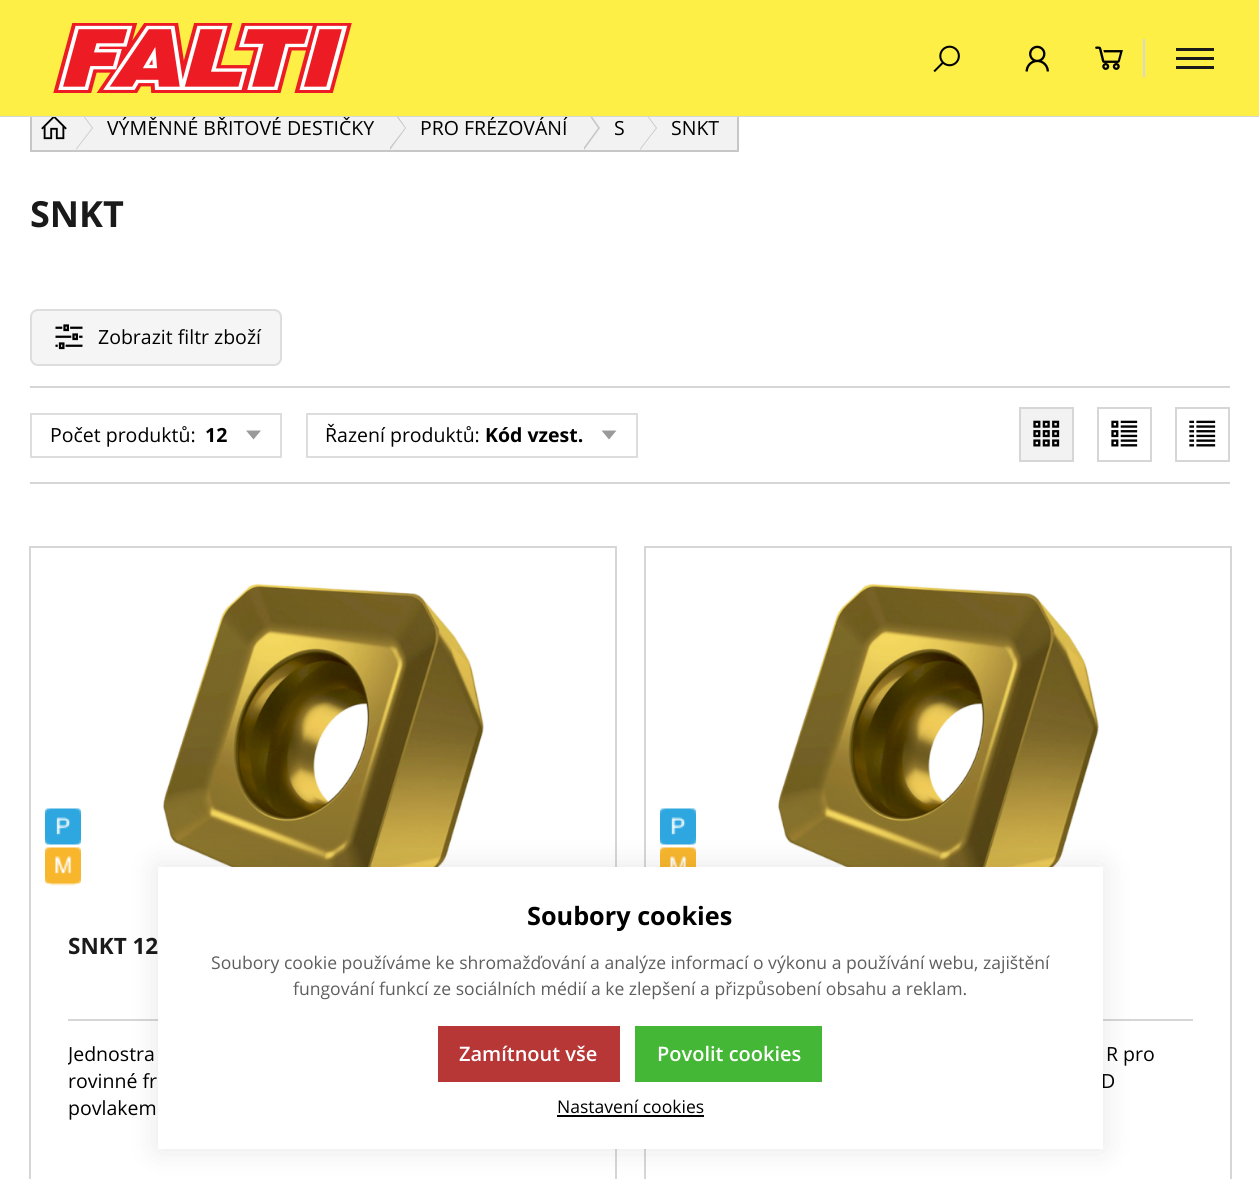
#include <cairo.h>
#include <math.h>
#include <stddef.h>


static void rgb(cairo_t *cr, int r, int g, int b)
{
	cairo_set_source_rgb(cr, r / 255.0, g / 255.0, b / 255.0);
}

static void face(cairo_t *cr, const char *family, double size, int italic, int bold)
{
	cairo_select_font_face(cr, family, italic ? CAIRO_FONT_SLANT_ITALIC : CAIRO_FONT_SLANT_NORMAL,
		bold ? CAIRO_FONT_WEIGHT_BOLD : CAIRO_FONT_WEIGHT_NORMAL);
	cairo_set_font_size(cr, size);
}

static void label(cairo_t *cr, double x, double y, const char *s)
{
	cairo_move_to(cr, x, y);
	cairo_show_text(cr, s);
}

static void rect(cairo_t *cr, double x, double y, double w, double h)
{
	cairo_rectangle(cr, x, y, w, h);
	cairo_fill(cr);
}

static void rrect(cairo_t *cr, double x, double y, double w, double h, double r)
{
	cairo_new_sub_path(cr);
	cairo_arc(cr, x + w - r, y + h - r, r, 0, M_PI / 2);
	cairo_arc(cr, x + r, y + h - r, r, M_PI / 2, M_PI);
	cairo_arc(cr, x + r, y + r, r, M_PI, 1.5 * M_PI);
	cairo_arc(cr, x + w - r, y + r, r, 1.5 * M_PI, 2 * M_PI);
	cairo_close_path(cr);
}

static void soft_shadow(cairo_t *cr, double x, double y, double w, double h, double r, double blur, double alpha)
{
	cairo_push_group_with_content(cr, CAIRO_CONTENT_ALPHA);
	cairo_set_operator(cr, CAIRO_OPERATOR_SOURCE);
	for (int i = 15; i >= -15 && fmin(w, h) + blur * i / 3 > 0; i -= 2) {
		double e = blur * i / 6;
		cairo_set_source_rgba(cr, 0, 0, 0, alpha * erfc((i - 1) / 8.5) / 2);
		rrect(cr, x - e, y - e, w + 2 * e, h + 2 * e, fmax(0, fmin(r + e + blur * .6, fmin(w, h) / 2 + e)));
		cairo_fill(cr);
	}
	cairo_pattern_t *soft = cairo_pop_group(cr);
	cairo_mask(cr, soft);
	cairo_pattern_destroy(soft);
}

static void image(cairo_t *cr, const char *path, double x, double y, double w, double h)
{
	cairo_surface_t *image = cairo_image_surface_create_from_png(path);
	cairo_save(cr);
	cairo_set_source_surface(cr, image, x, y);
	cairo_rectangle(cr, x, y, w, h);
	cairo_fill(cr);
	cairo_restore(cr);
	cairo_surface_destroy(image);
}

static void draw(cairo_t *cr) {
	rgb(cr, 255, 255, 255);
	cairo_paint(cr);
	rgb(cr, 242, 242, 242);
	rect(cr, 32, 117, 705, 33);
	rgb(cr, 199, 199, 199);
	cairo_new_path(cr);
	cairo_move_to(cr, 76, 150);
	cairo_line_to(cr, 76, 105);
	cairo_line_to(cr, 93, 128);
	cairo_close_path(cr);
	cairo_fill(cr);
	rgb(cr, 242, 242, 242);
	cairo_new_path(cr);
	cairo_move_to(cr, 75, 150);
	cairo_line_to(cr, 75, 105);
	cairo_line_to(cr, 92, 128);
	cairo_close_path(cr);
	cairo_fill(cr);
	rgb(cr, 199, 199, 199);
	cairo_new_path(cr);
	cairo_move_to(cr, 390, 150);
	cairo_line_to(cr, 390, 105);
	cairo_line_to(cr, 406, 128);
	cairo_close_path(cr);
	cairo_fill(cr);
	rgb(cr, 242, 242, 242);
	cairo_new_path(cr);
	cairo_move_to(cr, 388, 150);
	cairo_line_to(cr, 388, 105);
	cairo_line_to(cr, 405, 128);
	cairo_close_path(cr);
	cairo_fill(cr);
	rgb(cr, 199, 199, 199);
	cairo_new_path(cr);
	cairo_move_to(cr, 584, 150);
	cairo_line_to(cr, 584, 105);
	cairo_line_to(cr, 600, 128);
	cairo_close_path(cr);
	cairo_fill(cr);
	rgb(cr, 242, 242, 242);
	cairo_new_path(cr);
	cairo_move_to(cr, 582, 150);
	cairo_line_to(cr, 582, 105);
	cairo_line_to(cr, 598, 128);
	cairo_close_path(cr);
	cairo_fill(cr);
	rgb(cr, 199, 199, 199);
	cairo_new_path(cr);
	cairo_move_to(cr, 640, 150);
	cairo_line_to(cr, 640, 105);
	cairo_line_to(cr, 657, 128);
	cairo_close_path(cr);
	cairo_fill(cr);
	rgb(cr, 242, 242, 242);
	cairo_new_path(cr);
	cairo_move_to(cr, 639, 150);
	cairo_line_to(cr, 639, 105);
	cairo_line_to(cr, 656, 128);
	cairo_close_path(cr);
	cairo_fill(cr);
	rgb(cr, 253, 239, 70);
	rect(cr, 0, 0, 1259, 116);
	image(cr, "image0.png", 53, 23, 299, 70);
	image(cr, "image1.png", 933, 45, 27, 27);
	image(cr, "image2.png", 1025, 45, 24, 27);
	rgb(cr, 214, 214, 214);
	rect(cr, 1143, 39, 2, 38);
	image(cr, "image3.png", 1095, 46, 28, 24);
	rgb(cr, 26, 26, 26);
	rect(cr, 1176, 48, 38, 3);
	rect(cr, 1176, 57, 38, 3);
	rect(cr, 1176, 66, 38, 3);
	face(cr, "Open Sans", 19.5, 0, 0);
	rgb(cr, 0, 0, 0);
	label(cr, 107, 135, "VÝMĚNNÉ BŘITOVÉ DESTIČKY");
	label(cr, 420, 135, "PRO FRÉZOVÁNÍ");
	rgb(cr, 214, 214, 214);
	rect(cr, 0, 116, 1259, 1);
	rgb(cr, 199, 199, 199);
	rect(cr, 30, 117, 2, 35);
	rect(cr, 32, 150, 609, 2);
	image(cr, "image4.png", 41, 117, 26, 23);
	rgb(cr, 0, 0, 0);
	label(cr, 614, 135, "S");
	rgb(cr, 199, 199, 199);
	rect(cr, 737, 117, 2, 35);
	rect(cr, 641, 150, 97, 2);
	rgb(cr, 0, 0, 0);
	label(cr, 671, 135, "SNKT");
	face(cr, "Open Sans", 36, 0, 1);
	rgb(cr, 26, 26, 26);
	label(cr, 30, 227, "SNKT");
	rgb(cr, 245, 245, 245);
	rrect(cr, 31, 310, 250, 55, 7);
	cairo_fill_preserve(cr);
	rgb(cr, 221, 221, 221);
	cairo_stroke(cr);
	image(cr, "image5.png", 55, 324, 28, 26);
	face(cr, "Open Sans", 19.5, 0, 0);
	rgb(cr, 0, 0, 0);
	label(cr, 98, 344, "Zobrazit filtr zboží");
	rgb(cr, 214, 214, 214);
	rect(cr, 30, 386, 1200, 2);
	rgb(cr, 154, 154, 154);
	cairo_new_path(cr);
	cairo_move_to(cr, 253.5, 439.5);
	cairo_line_to(cr, 246, 430.5);
	cairo_line_to(cr, 261, 430.5);
	cairo_close_path(cr);
	cairo_fill(cr);
	cairo_rectangle(cr, 31, 414, 250, 43);
	rgb(cr, 221, 221, 221);
	cairo_stroke(cr);
	rgb(cr, 0, 0, 0);
	label(cr, 50, 442, "Počet produktů:");
	face(cr, "Open Sans", 19.5, 0, 1);
	label(cr, 205, 442, "12");
	rgb(cr, 154, 154, 154);
	cairo_new_path(cr);
	cairo_move_to(cr, 609, 439.5);
	cairo_line_to(cr, 601.5, 430.5);
	cairo_line_to(cr, 616.5, 430.5);
	cairo_close_path(cr);
	cairo_fill(cr);
	cairo_rectangle(cr, 307, 414, 330, 43);
	rgb(cr, 221, 221, 221);
	cairo_stroke(cr);
	face(cr, "Open Sans", 19.5, 0, 0);
	rgb(cr, 0, 0, 0);
	label(cr, 325, 442, "Řazení produktů:");
	face(cr, "Open Sans", 19.5, 0, 1);
	label(cr, 485, 442, "Kód vzest.");
	rgb(cr, 242, 242, 242);
	cairo_rectangle(cr, 1020, 408, 53, 53);
	cairo_fill_preserve(cr);
	rgb(cr, 214, 214, 214);
	cairo_stroke(cr);
	image(cr, "image6.png", 1033, 420, 27, 27);
	cairo_rectangle(cr, 1098, 408, 53, 53);
	cairo_stroke(cr);
	image(cr, "image7.png", 1111, 420, 27, 27);
	cairo_rectangle(cr, 1176, 408, 53, 53);
	cairo_stroke(cr);
	image(cr, "image8.png", 1189, 420, 27, 27);
	rect(cr, 30, 482, 1200, 2);
	cairo_rectangle(cr, 30, 547, 586, 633);
	cairo_stroke(cr);
	image(cr, "image9.png", 45, 808, 36, 37);
	image(cr, "image10.png", 45, 847, 36, 39);
	image(cr, "image11.png", 162, 583, 322, 284);
	face(cr, "Open Sans", 22.5, 0, 1);
	rgb(cr, 26, 26, 26);
	label(cr, 68, 954, "SNKT 12");
	rgb(cr, 214, 214, 214);
	rect(cr, 68, 1019, 90, 2);
	cairo_save(cr);
	cairo_rectangle(cr, 68, 1040, 510, 136);
	cairo_clip(cr);
	face(cr, "Open Sans", 19.5, 0, 0);
	rgb(cr, 0, 0, 0);
	label(cr, 68, 1061, "Jednostra");
	cairo_restore(cr);
	face(cr, "Open Sans", 19.5, 0, 0);
	rgb(cr, 0, 0, 0);
	label(cr, 68, 1088, "rovinné fr");
	label(cr, 68, 1115, "povlakem");
	cairo_rectangle(cr, 645, 547, 586, 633);
	rgb(cr, 214, 214, 214);
	cairo_stroke(cr);
	image(cr, "image9.png", 660, 808, 36, 37);
	image(cr, "image12.png", 660, 847, 36, 20);
	image(cr, "image11.png", 777, 583, 322, 284);
	rect(cr, 1103, 1019, 90, 2);
	rgb(cr, 0, 0, 0);
	label(cr, 1106, 1061, "R pro");
	label(cr, 1101, 1088, "D");
	rgb(cr, 0, 0, 0);
	soft_shadow(cr, 158, 867, 945, 282, 0, 15, 0.1);
	rgb(cr, 255, 255, 255);
	rect(cr, 158, 867, 945, 282);
	face(cr, "Open Sans", 25.25, 0, 1);
	rgb(cr, 0, 0, 0);
	label(cr, 527, 925, "Soubory cookies");
	face(cr, "Open Sans", 17.55, 0, 0);
	rgb(cr, 94, 94, 94);
	label(cr, 211, 969, "Soubory cookie používáme ke shromažďování a analýze informací o výkonu a používání webu, zajištění");
	label(cr, 293, 995, "fungování funkcí ze sociálních médií a ke zlepšení a přizpůsobení obsahu a reklam.");
	rgb(cr, 183, 54, 54);
	rect(cr, 438, 1026, 182, 56);
	face(cr, "Open Sans SemiBold", 20, 0, 0);
	rgb(cr, 255, 255, 255);
	label(cr, 459, 1061, "Zamítnout vše");
	rgb(cr, 68, 183, 54);
	rect(cr, 635, 1026, 187, 56);
	rgb(cr, 255, 255, 255);
	label(cr, 657, 1061, "Povolit cookies");
	face(cr, "Open Sans", 17.55, 0, 0);
	rgb(cr, 0, 0, 0);
	label(cr, 557, 1113, "Nastavení cookies");
	rect(cr, 557, 1115, 147, 2);
}

int main(void) {
	cairo_surface_t *surface = cairo_image_surface_create(CAIRO_FORMAT_RGB24, 1259, 1179);
	cairo_t *cr = cairo_create(surface);
	cairo_font_options_t *options = cairo_font_options_create();
	cairo_font_options_set_hint_metrics(options, CAIRO_HINT_METRICS_OFF);
	cairo_font_options_set_hint_style(options, CAIRO_HINT_STYLE_NONE);
	cairo_set_font_options(cr, options);
	cairo_set_miter_limit(cr, 4);
	draw(cr);
	cairo_surface_write_to_png(surface, "render.png");
	cairo_font_options_destroy(options);
	cairo_destroy(cr);
	cairo_surface_destroy(surface);
	return 0;
}
